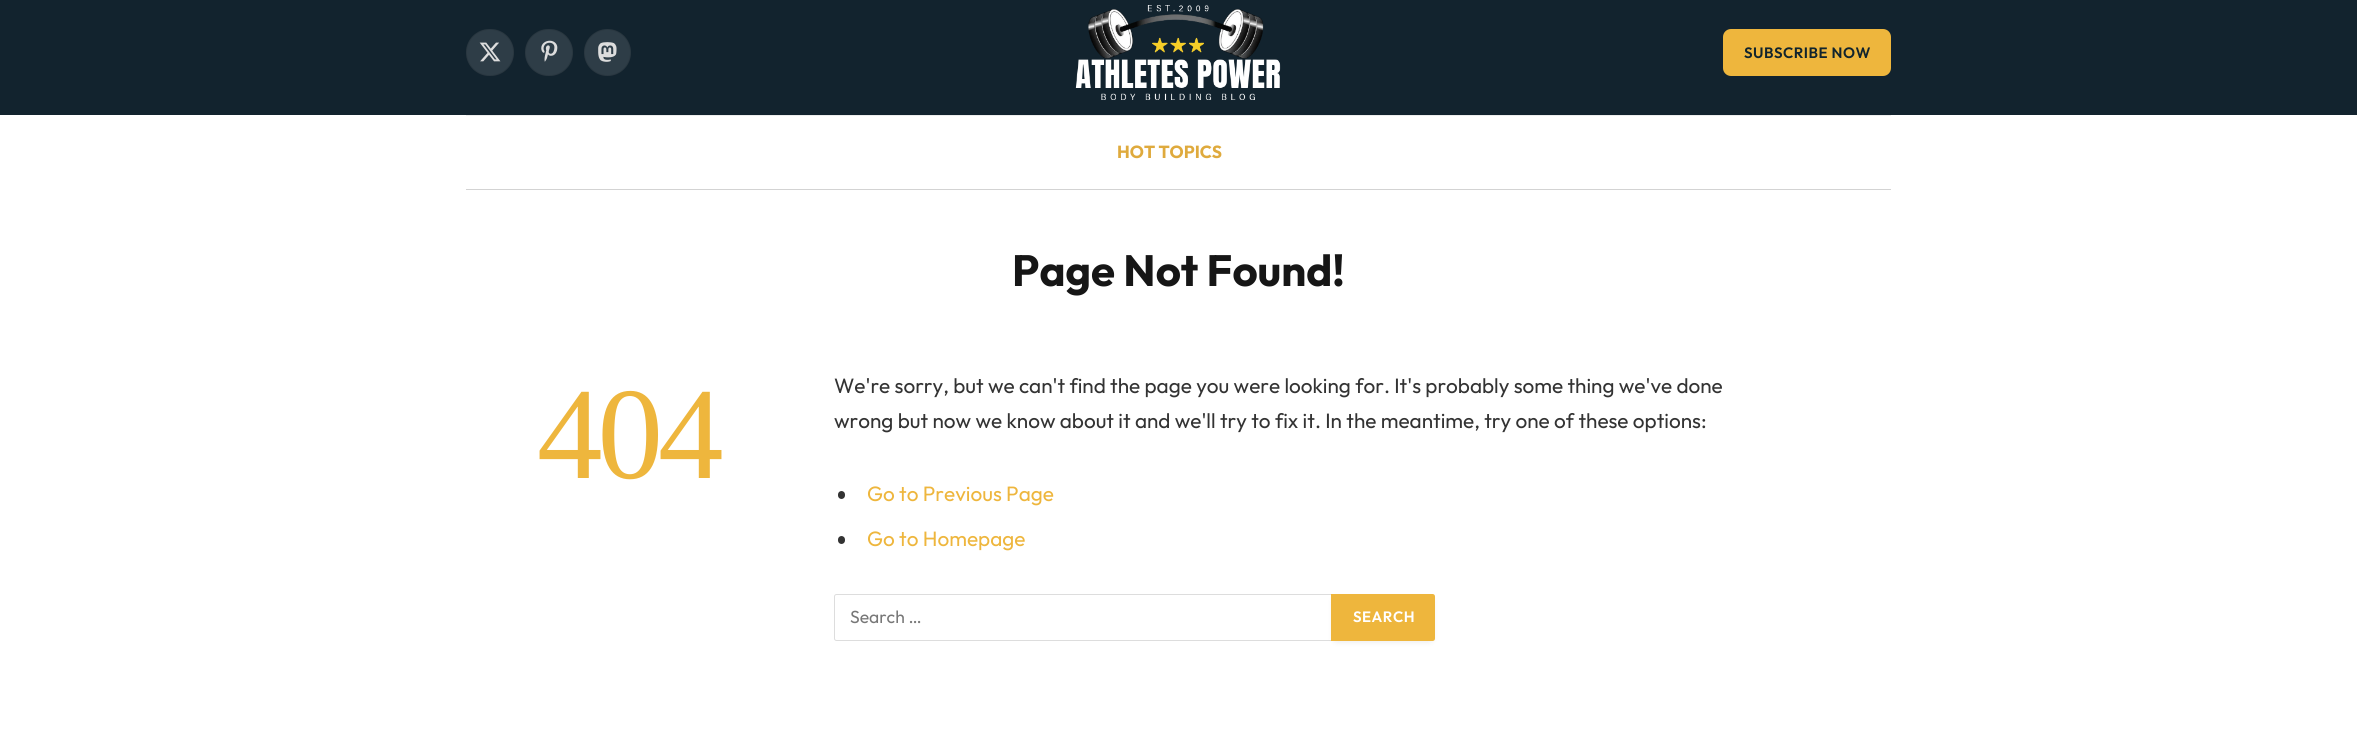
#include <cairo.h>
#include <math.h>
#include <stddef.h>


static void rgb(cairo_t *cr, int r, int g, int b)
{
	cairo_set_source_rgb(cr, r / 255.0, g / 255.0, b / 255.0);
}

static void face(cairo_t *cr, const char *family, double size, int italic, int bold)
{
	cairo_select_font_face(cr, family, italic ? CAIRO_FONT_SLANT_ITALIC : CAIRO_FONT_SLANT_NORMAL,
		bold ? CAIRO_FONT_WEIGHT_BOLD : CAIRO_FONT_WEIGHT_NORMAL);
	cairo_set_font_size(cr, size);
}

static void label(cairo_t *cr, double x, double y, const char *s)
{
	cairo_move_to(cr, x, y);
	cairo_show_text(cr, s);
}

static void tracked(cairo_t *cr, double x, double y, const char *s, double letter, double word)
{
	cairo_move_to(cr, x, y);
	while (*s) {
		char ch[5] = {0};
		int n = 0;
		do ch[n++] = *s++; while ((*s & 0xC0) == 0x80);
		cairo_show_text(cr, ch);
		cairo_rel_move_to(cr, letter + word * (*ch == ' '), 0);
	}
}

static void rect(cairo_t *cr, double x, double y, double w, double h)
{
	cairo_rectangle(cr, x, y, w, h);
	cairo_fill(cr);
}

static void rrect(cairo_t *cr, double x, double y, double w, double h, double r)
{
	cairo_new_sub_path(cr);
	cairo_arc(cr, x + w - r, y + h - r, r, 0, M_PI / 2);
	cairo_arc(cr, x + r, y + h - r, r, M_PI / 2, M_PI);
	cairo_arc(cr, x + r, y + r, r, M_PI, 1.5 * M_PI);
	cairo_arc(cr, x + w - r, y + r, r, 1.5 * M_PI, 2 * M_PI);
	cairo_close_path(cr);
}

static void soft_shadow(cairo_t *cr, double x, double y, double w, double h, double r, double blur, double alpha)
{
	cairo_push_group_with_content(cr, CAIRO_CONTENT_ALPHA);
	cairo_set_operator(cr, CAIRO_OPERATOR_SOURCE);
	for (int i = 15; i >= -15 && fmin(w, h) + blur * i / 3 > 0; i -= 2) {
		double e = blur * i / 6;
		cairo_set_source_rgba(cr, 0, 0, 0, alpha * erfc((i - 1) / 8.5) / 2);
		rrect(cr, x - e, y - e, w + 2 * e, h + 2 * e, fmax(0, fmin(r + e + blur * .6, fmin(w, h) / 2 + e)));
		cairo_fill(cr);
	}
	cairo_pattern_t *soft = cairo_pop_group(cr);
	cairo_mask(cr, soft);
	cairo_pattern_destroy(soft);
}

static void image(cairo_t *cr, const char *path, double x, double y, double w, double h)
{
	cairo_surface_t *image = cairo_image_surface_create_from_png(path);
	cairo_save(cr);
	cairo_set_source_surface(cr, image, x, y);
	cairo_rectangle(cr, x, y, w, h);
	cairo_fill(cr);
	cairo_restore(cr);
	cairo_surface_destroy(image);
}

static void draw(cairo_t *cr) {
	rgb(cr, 255, 255, 255);
	cairo_paint(cr);
	rgb(cr, 18, 35, 46);
	rect(cr, 0, 0, 2357, 115);
	rgb(cr, 46, 61, 71);
	rrect(cr, 466, 29, 48, 47, 23.5);
	cairo_fill(cr);
	rrect(cr, 466.5, 29.5, 47, 46, 23);
	cairo_set_source_rgba(cr, 0, 0, 0, 0.09);
	cairo_set_line_width(cr, 1);
	cairo_stroke(cr);
	image(cr, "image0.png", 479, 42, 22, 20);
	rgb(cr, 46, 61, 71);
	rrect(cr, 525, 29, 48, 47, 23.5);
	cairo_fill(cr);
	rrect(cr, 525.5, 29.5, 47, 46, 23);
	cairo_set_source_rgba(cr, 0, 0, 0, 0.09);
	cairo_stroke(cr);
	image(cr, "image1.png", 541, 40, 17, 22);
	rgb(cr, 46, 61, 71);
	cairo_arc(cr, 607.5, 52.5, 23.5, 0, 2 * M_PI);
	cairo_fill(cr);
	cairo_arc(cr, 607.5, 52.5, 23, 0, 2 * M_PI);
	cairo_set_source_rgba(cr, 0, 0, 0, 0.09);
	cairo_stroke(cr);
	image(cr, "image2.png", 598, 42, 19, 20);
	image(cr, "image3.png", 1075, 5, 206, 95);
	rgb(cr, 238, 182, 61);
	rrect(cr, 1723, 29, 168, 47, 8);
	cairo_fill(cr);
	face(cr, "Outfit SemiBold", 15, 0, 0);
	rgb(cr, 17, 36, 45);
	tracked(cr, 1744, 58, "SUBSCRIBE NOW", 0.5, 0);
	rgb(cr, 237, 237, 237);
	rect(cr, 466, 115, 1425, 1);
	rgb(cr, 211, 211, 211);
	rect(cr, 466, 189, 1425, 1);
	face(cr, "Outfit", 17.5, 0, 1);
	rgb(cr, 223, 170, 61);
	label(cr, 1117, 158, "HOT TOPICS");
	face(cr, "Outfit", 43.75, 0, 1);
	rgb(cr, 22, 22, 22);
	label(cr, 1012, 286, "Page Not Found!");
	face(cr, "Liberation Serif", 131, 0, 0);
	rgb(cr, 238, 182, 61);
	tracked(cr, 537, 478, "404", -5, 0);
	face(cr, "Outfit", 20.75, 0, 0);
	rgb(cr, 51, 51, 51);
	label(cr, 834, 393, "We're sorry, but we can't find the page you were looking for. It's probably some thing we've done");
	label(cr, 834, 428, "wrong but now we know about it and we'll try to fix it. In the meantime, try one of these options:");
	rrect(cr, 838, 491, 7, 8, 3.5);
	cairo_fill(cr);
	rgb(cr, 238, 182, 61);
	label(cr, 867, 501, "Go to Previous Page");
	rgb(cr, 51, 51, 51);
	rrect(cr, 838, 536, 7, 8, 3.5);
	cairo_fill(cr);
	rgb(cr, 238, 182, 61);
	label(cr, 867, 546, "Go to Homepage");
	rrect(cr, 834.5, 594.5, 499, 46, 2);
	rgb(cr, 221, 221, 221);
	cairo_stroke(cr);
	face(cr, "Outfit", 17.5, 0, 0);
	rgb(cr, 119, 119, 119);
	label(cr, 850, 623, "Search …");
	rgb(cr, 0, 0, 0);
	soft_shadow(cr, 1336, 601, 94, 38, 0, 4.5, 0.16);
	rgb(cr, 238, 182, 61);
	cairo_new_path(cr);
	cairo_move_to(cr, 1331, 594);
	cairo_line_to(cr, 1432.5, 594);
	cairo_curve_to(cr, 1434, 594, 1435, 595, 1435, 596.5);
	cairo_line_to(cr, 1435, 638.5);
	cairo_curve_to(cr, 1435, 640, 1434, 641, 1432.5, 641);
	cairo_line_to(cr, 1331, 641);
	cairo_close_path(cr);
	cairo_fill(cr);
	face(cr, "Outfit SemiBold", 15, 0, 0);
	rgb(cr, 255, 255, 255);
	tracked(cr, 1353, 622, "SEARCH", 0.5, 0);
}

int main(void) {
	cairo_surface_t *surface = cairo_image_surface_create(CAIRO_FORMAT_RGB24, 2357, 733);
	cairo_t *cr = cairo_create(surface);
	cairo_font_options_t *options = cairo_font_options_create();
	cairo_font_options_set_hint_metrics(options, CAIRO_HINT_METRICS_OFF);
	cairo_font_options_set_hint_style(options, CAIRO_HINT_STYLE_NONE);
	cairo_set_font_options(cr, options);
	cairo_set_miter_limit(cr, 4);
	draw(cr);
	cairo_surface_write_to_png(surface, "render.png");
	cairo_font_options_destroy(options);
	cairo_destroy(cr);
	cairo_surface_destroy(surface);
	return 0;
}
